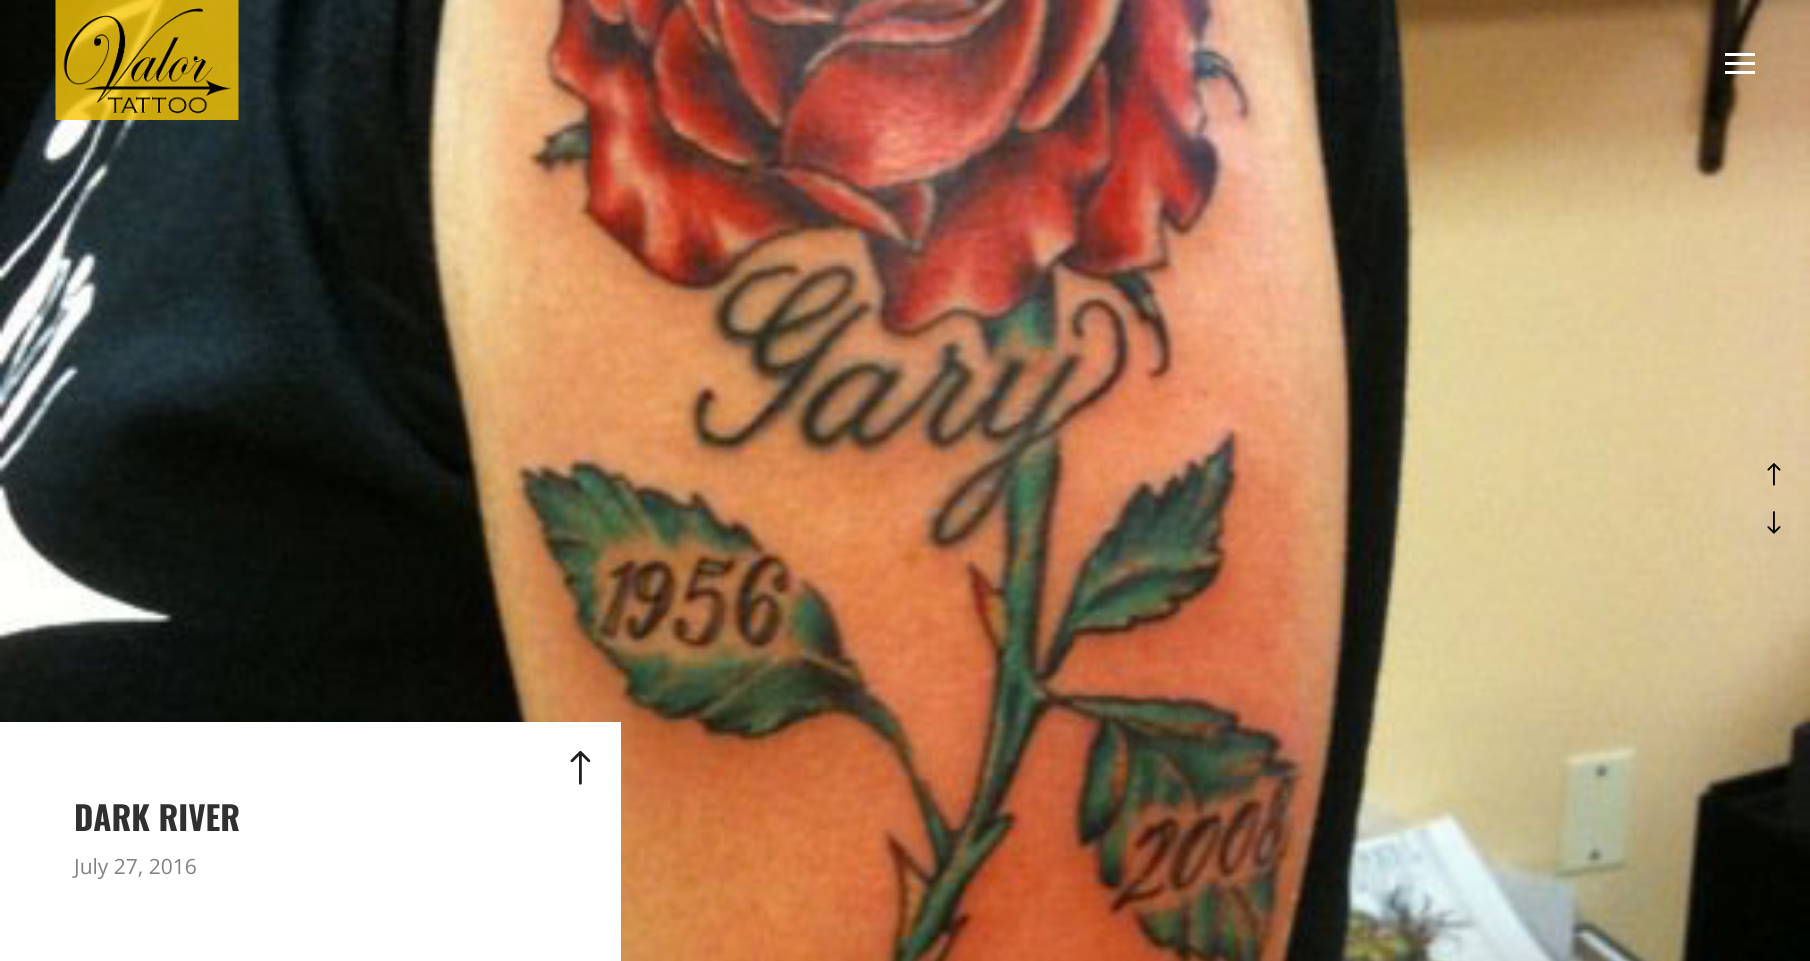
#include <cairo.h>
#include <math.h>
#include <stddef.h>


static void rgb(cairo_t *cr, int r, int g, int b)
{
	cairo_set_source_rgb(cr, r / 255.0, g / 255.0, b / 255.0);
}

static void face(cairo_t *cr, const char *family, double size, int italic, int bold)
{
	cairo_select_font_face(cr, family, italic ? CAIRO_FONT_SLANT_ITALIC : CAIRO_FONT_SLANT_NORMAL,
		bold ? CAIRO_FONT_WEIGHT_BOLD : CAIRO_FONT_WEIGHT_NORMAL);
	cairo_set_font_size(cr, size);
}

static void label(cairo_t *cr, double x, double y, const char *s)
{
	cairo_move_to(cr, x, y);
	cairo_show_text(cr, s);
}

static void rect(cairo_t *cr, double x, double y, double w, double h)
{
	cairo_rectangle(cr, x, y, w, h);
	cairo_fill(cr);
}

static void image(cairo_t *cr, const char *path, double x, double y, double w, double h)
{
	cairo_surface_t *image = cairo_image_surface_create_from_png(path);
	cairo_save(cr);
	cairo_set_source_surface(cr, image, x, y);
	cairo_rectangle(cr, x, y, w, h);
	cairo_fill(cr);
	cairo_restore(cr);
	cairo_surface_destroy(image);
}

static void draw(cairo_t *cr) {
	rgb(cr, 255, 255, 255);
	cairo_paint(cr);
	image(cr, "image1.png", 0, 0, 1810, 961);
	image(cr, "image0.png", 55, 0, 184, 120);
	rgb(cr, 255, 255, 255);
	rect(cr, 1725, 53, 30, 3);
	rect(cr, 1725, 62, 30, 3);
	rect(cr, 1725, 71, 30, 3);
	image(cr, "image2.png", 1767, 463, 14, 23);
	image(cr, "image3.png", 1767, 511, 14, 23);
	rect(cr, 0, 722, 621, 239);
	image(cr, "image4.png", 570, 751, 21, 34);
	face(cr, "Oswald", 33, 0, 1);
	rgb(cr, 48, 48, 48);
	label(cr, 74, 831, "DARK RIVER");
	face(cr, "Open Sans", 21, 0, 0);
	rgb(cr, 130, 130, 130);
	label(cr, 74, 874, "July 27, 2016");
}

int main(void) {
	cairo_surface_t *surface = cairo_image_surface_create(CAIRO_FORMAT_RGB24, 1810, 961);
	cairo_t *cr = cairo_create(surface);
	cairo_font_options_t *options = cairo_font_options_create();
	cairo_font_options_set_hint_metrics(options, CAIRO_HINT_METRICS_OFF);
	cairo_font_options_set_hint_style(options, CAIRO_HINT_STYLE_NONE);
	cairo_set_font_options(cr, options);
	cairo_set_miter_limit(cr, 4);
	draw(cr);
	cairo_surface_write_to_png(surface, "render.png");
	cairo_font_options_destroy(options);
	cairo_destroy(cr);
	cairo_surface_destroy(surface);
	return 0;
}
